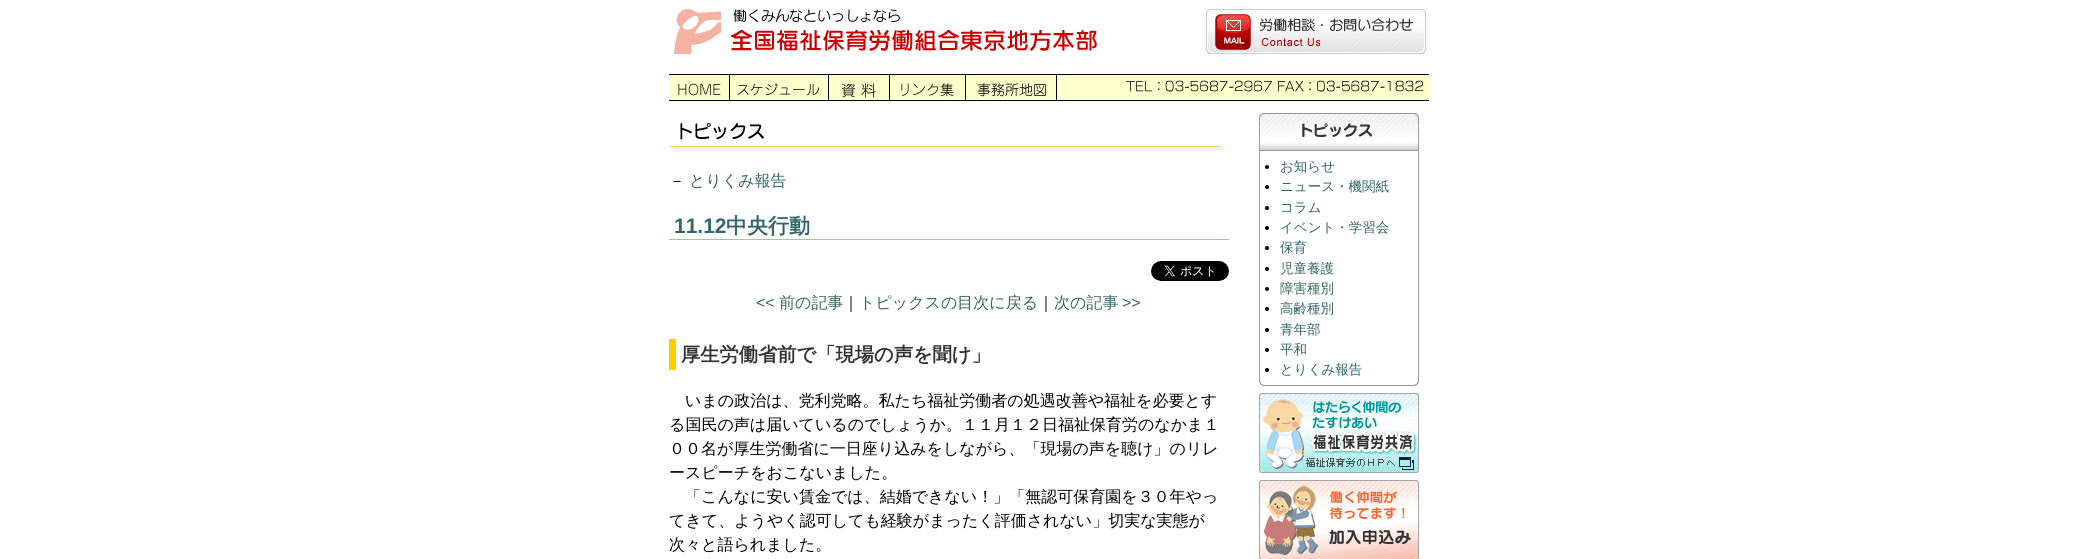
#include <cairo.h>
#include <math.h>
#include <stddef.h>


static void rgb(cairo_t *cr, int r, int g, int b)
{
	cairo_set_source_rgb(cr, r / 255.0, g / 255.0, b / 255.0);
}

static void face(cairo_t *cr, const char *family, double size, int italic, int bold)
{
	cairo_select_font_face(cr, family, italic ? CAIRO_FONT_SLANT_ITALIC : CAIRO_FONT_SLANT_NORMAL,
		bold ? CAIRO_FONT_WEIGHT_BOLD : CAIRO_FONT_WEIGHT_NORMAL);
	cairo_set_font_size(cr, size);
}

static void label(cairo_t *cr, double x, double y, const char *s)
{
	cairo_move_to(cr, x, y);
	cairo_show_text(cr, s);
}

static void rect(cairo_t *cr, double x, double y, double w, double h)
{
	cairo_rectangle(cr, x, y, w, h);
	cairo_fill(cr);
}

static void image(cairo_t *cr, const char *path, double x, double y, double w, double h)
{
	cairo_surface_t *image = cairo_image_surface_create_from_png(path);
	cairo_save(cr);
	cairo_set_source_surface(cr, image, x, y);
	cairo_rectangle(cr, x, y, w, h);
	cairo_fill(cr);
	cairo_restore(cr);
	cairo_surface_destroy(image);
}

static void draw(cairo_t *cr) {
	rgb(cr, 255, 255, 255);
	cairo_paint(cr);
	image(cr, "image0.png", 674, 9, 423, 45);
	image(cr, "image1.png", 1206, 9, 220, 45);
	rgb(cr, 255, 255, 204);
	rect(cr, 669, 75, 760, 25);
	rgb(cr, 0, 0, 0);
	rect(cr, 669, 74, 760, 1);
	rect(cr, 669, 100, 760, 1);
	rect(cr, 729, 75, 1, 26);
	image(cr, "image2.png", 678, 83, 43, 13);
	rect(cr, 828, 75, 1, 26);
	image(cr, "image3.png", 737, 83, 83, 13);
	rect(cr, 889, 75, 1, 26);
	image(cr, "image4.png", 841, 83, 35, 15);
	rect(cr, 965, 75, 1, 26);
	image(cr, "image5.png", 901, 83, 53, 14);
	rect(cr, 1056, 75, 1, 26);
	image(cr, "image6.png", 977, 83, 69, 14);
	image(cr, "image7.png", 1126, 80, 297, 12);
	image(cr, "image8.png", 670, 123, 554, 29);
	face(cr, "WenQuanYi Zen Hei Medium", 16, 0, 0);
	label(cr, 669, 186, "－");
	rgb(cr, 51, 102, 102);
	label(cr, 689, 186, "とりくみ報告");
	rgb(cr, 153, 204, 153);
	rect(cr, 669, 239, 560, 1);
	face(cr, "Liberation Sans", 21, 0, 1);
	rgb(cr, 51, 102, 102);
	label(cr, 674, 233, "11.12");
	face(cr, "WenQuanYi Zen Hei", 21, 0, 1);
	label(cr, 726, 233, "中央行動");
	image(cr, "image9.png", 1151, 261, 78, 20);
	face(cr, "Liberation Sans", 16, 0, 0);
	label(cr, 756, 308, "<<");
	face(cr, "WenQuanYi Zen Hei Medium", 16, 0, 0);
	label(cr, 779, 308, "前の記事");
	rgb(cr, 0, 0, 0);
	label(cr, 843, 308, "｜");
	rgb(cr, 51, 102, 102);
	label(cr, 859, 308, "トピックスの目次に戻る");
	rgb(cr, 0, 0, 0);
	label(cr, 1038, 308, "｜");
	rgb(cr, 51, 102, 102);
	label(cr, 1054, 308, "次の記事");
	face(cr, "Liberation Sans", 16, 0, 0);
	label(cr, 1122, 308, ">>");
	rgb(cr, 255, 204, 0);
	rect(cr, 669, 339, 7, 31);
	face(cr, "WenQuanYi Zen Hei", 19.25, 0, 1);
	rgb(cr, 51, 51, 51);
	label(cr, 681, 361, "厚生労働省前で「現場の声を聞け」");
	face(cr, "WenQuanYi Zen Hei Medium", 16, 0, 0);
	rgb(cr, 0, 0, 0);
	label(cr, 685, 406, "いまの政治は、党利党略。私たち福祉労働者の処遇改善や福祉を必要とす");
	label(cr, 669, 430, "る国民の声は届いているのでしょうか。１１月１２日福祉保育労のなかま１");
	label(cr, 669, 454, "００名が厚生労働省に一日座り込みをしながら、「現場の声を聴け」のリレ");
	label(cr, 669, 478, "ースピーチをおこないました。");
	label(cr, 685, 502, "「こんなに安い賃金では、結婚できない！」「無認可保育園を３０年やっ");
	label(cr, 669, 526, "てきて、ようやく認可しても経験がまったく評価されない」切実な実態が");
	label(cr, 669, 550, "次々と語られました。");
	image(cr, "image10.png", 1259, 380, 160, 6);
	image(cr, "image11.png", 1259, 113, 160, 38);
	rgb(cr, 153, 153, 153);
	rect(cr, 1418, 151, 1, 229);
	rect(cr, 1259, 151, 1, 229);
	rgb(cr, 0, 0, 0);
	cairo_arc(cr, 1267, 167, 2, 0, 2 * M_PI);
	cairo_fill(cr);
	face(cr, "WenQuanYi Zen Hei Medium", 13.5, 0, 0);
	rgb(cr, 51, 102, 102);
	label(cr, 1280, 171, "お知らせ");
	rgb(cr, 0, 0, 0);
	cairo_new_path(cr);
	cairo_arc(cr, 1267, 187, 2, 0, 2 * M_PI);
	cairo_fill(cr);
	rgb(cr, 51, 102, 102);
	label(cr, 1280, 191, "ニュース・機関紙");
	rgb(cr, 0, 0, 0);
	cairo_new_path(cr);
	cairo_arc(cr, 1267, 208, 2, 0, 2 * M_PI);
	cairo_fill(cr);
	rgb(cr, 51, 102, 102);
	label(cr, 1280, 212, "コラム");
	rgb(cr, 0, 0, 0);
	cairo_new_path(cr);
	cairo_arc(cr, 1267, 228, 2, 0, 2 * M_PI);
	cairo_fill(cr);
	rgb(cr, 51, 102, 102);
	label(cr, 1280, 232, "イベント・学習会");
	rgb(cr, 0, 0, 0);
	cairo_new_path(cr);
	cairo_arc(cr, 1267, 248, 2, 0, 2 * M_PI);
	cairo_fill(cr);
	rgb(cr, 51, 102, 102);
	label(cr, 1280, 252, "保育");
	rgb(cr, 0, 0, 0);
	cairo_new_path(cr);
	cairo_arc(cr, 1267, 269, 2, 0, 2 * M_PI);
	cairo_fill(cr);
	rgb(cr, 51, 102, 102);
	label(cr, 1280, 273, "児童養護");
	rgb(cr, 0, 0, 0);
	cairo_new_path(cr);
	cairo_arc(cr, 1267, 289, 2, 0, 2 * M_PI);
	cairo_fill(cr);
	rgb(cr, 51, 102, 102);
	label(cr, 1280, 293, "障害種別");
	rgb(cr, 0, 0, 0);
	cairo_new_path(cr);
	cairo_arc(cr, 1267, 309, 2, 0, 2 * M_PI);
	cairo_fill(cr);
	rgb(cr, 51, 102, 102);
	label(cr, 1280, 313, "高齢種別");
	rgb(cr, 0, 0, 0);
	cairo_new_path(cr);
	cairo_arc(cr, 1267, 330, 2, 0, 2 * M_PI);
	cairo_fill(cr);
	rgb(cr, 51, 102, 102);
	label(cr, 1280, 334, "青年部");
	rgb(cr, 0, 0, 0);
	cairo_new_path(cr);
	cairo_arc(cr, 1267, 350, 2, 0, 2 * M_PI);
	cairo_fill(cr);
	rgb(cr, 51, 102, 102);
	label(cr, 1280, 354, "平和");
	rgb(cr, 0, 0, 0);
	cairo_new_path(cr);
	cairo_arc(cr, 1267, 370, 2, 0, 2 * M_PI);
	cairo_fill(cr);
	rgb(cr, 51, 102, 102);
	label(cr, 1280, 374, "とりくみ報告");
	image(cr, "image12.png", 1259, 393, 160, 80);
	image(cr, "image13.png", 1259, 480, 160, 79);
}

int main(void) {
	cairo_surface_t *surface = cairo_image_surface_create(CAIRO_FORMAT_RGB24, 2097, 559);
	cairo_t *cr = cairo_create(surface);
	cairo_font_options_t *options = cairo_font_options_create();
	cairo_font_options_set_hint_metrics(options, CAIRO_HINT_METRICS_OFF);
	cairo_font_options_set_hint_style(options, CAIRO_HINT_STYLE_NONE);
	cairo_set_font_options(cr, options);
	cairo_set_miter_limit(cr, 4);
	draw(cr);
	cairo_surface_write_to_png(surface, "render.png");
	cairo_font_options_destroy(options);
	cairo_destroy(cr);
	cairo_surface_destroy(surface);
	return 0;
}
